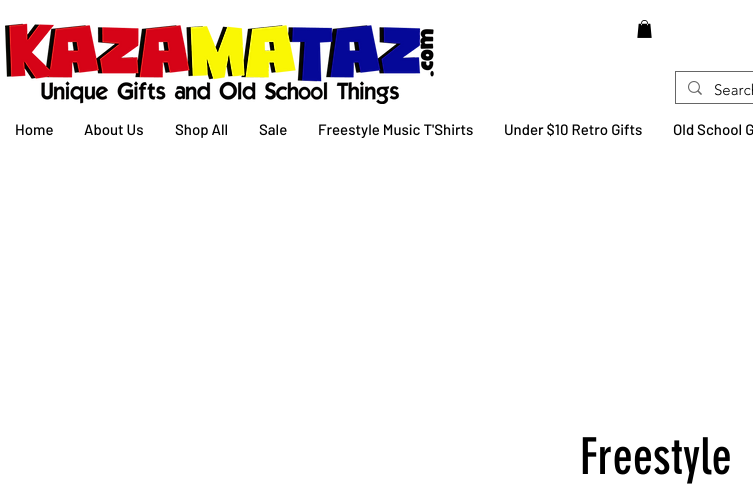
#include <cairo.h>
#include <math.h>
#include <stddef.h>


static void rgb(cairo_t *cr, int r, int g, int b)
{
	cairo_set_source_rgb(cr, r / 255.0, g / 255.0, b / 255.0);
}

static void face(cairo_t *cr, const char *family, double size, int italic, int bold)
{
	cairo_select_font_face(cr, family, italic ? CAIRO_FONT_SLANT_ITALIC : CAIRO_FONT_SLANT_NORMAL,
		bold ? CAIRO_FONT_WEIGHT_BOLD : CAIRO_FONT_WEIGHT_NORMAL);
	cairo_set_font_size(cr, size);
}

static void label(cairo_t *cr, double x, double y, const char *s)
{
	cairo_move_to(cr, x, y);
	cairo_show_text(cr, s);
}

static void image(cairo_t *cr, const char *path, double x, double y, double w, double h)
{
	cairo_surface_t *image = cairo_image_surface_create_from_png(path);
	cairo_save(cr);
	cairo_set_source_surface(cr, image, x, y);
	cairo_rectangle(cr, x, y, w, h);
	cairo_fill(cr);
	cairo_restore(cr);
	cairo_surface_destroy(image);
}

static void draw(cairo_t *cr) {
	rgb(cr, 255, 255, 255);
	cairo_paint(cr);
	image(cr, "image0.png", 637, 20, 15, 18);
	image(cr, "image1.png", 5, 23, 429, 81);
	cairo_rectangle(cr, 675.5, 71.5, 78, 32);
	rgb(cr, 102, 102, 102);
	cairo_set_line_width(cr, 1);
	cairo_stroke(cr);
	image(cr, "image2.png", 688, 81, 14, 14);
	face(cr, "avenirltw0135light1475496 Light", 15, 0, 0);
	rgb(cr, 0, 0, 0);
	label(cr, 714, 95, "Search");
	face(cr, "Barlow Medium", 15, 0, 0);
	label(cr, 15, 135, "Home");
	label(cr, 84, 135, "About Us");
	label(cr, 175, 135, "Shop All");
	label(cr, 259, 135, "Sale");
	label(cr, 318, 135, "Freestyle Music T'Shirts");
	label(cr, 504, 135, "Under $10 Retro Gifts");
	label(cr, 673, 135, "Old School G");
	face(cr, "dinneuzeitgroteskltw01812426", 50, 0, 0);
	label(cr, 580, 474, "Freestyle");
}

int main(void) {
	cairo_surface_t *surface = cairo_image_surface_create(CAIRO_FORMAT_RGB24, 753, 493);
	cairo_t *cr = cairo_create(surface);
	cairo_font_options_t *options = cairo_font_options_create();
	cairo_font_options_set_hint_metrics(options, CAIRO_HINT_METRICS_OFF);
	cairo_font_options_set_hint_style(options, CAIRO_HINT_STYLE_NONE);
	cairo_set_font_options(cr, options);
	cairo_set_miter_limit(cr, 4);
	draw(cr);
	cairo_surface_write_to_png(surface, "render.png");
	cairo_font_options_destroy(options);
	cairo_destroy(cr);
	cairo_surface_destroy(surface);
	return 0;
}
